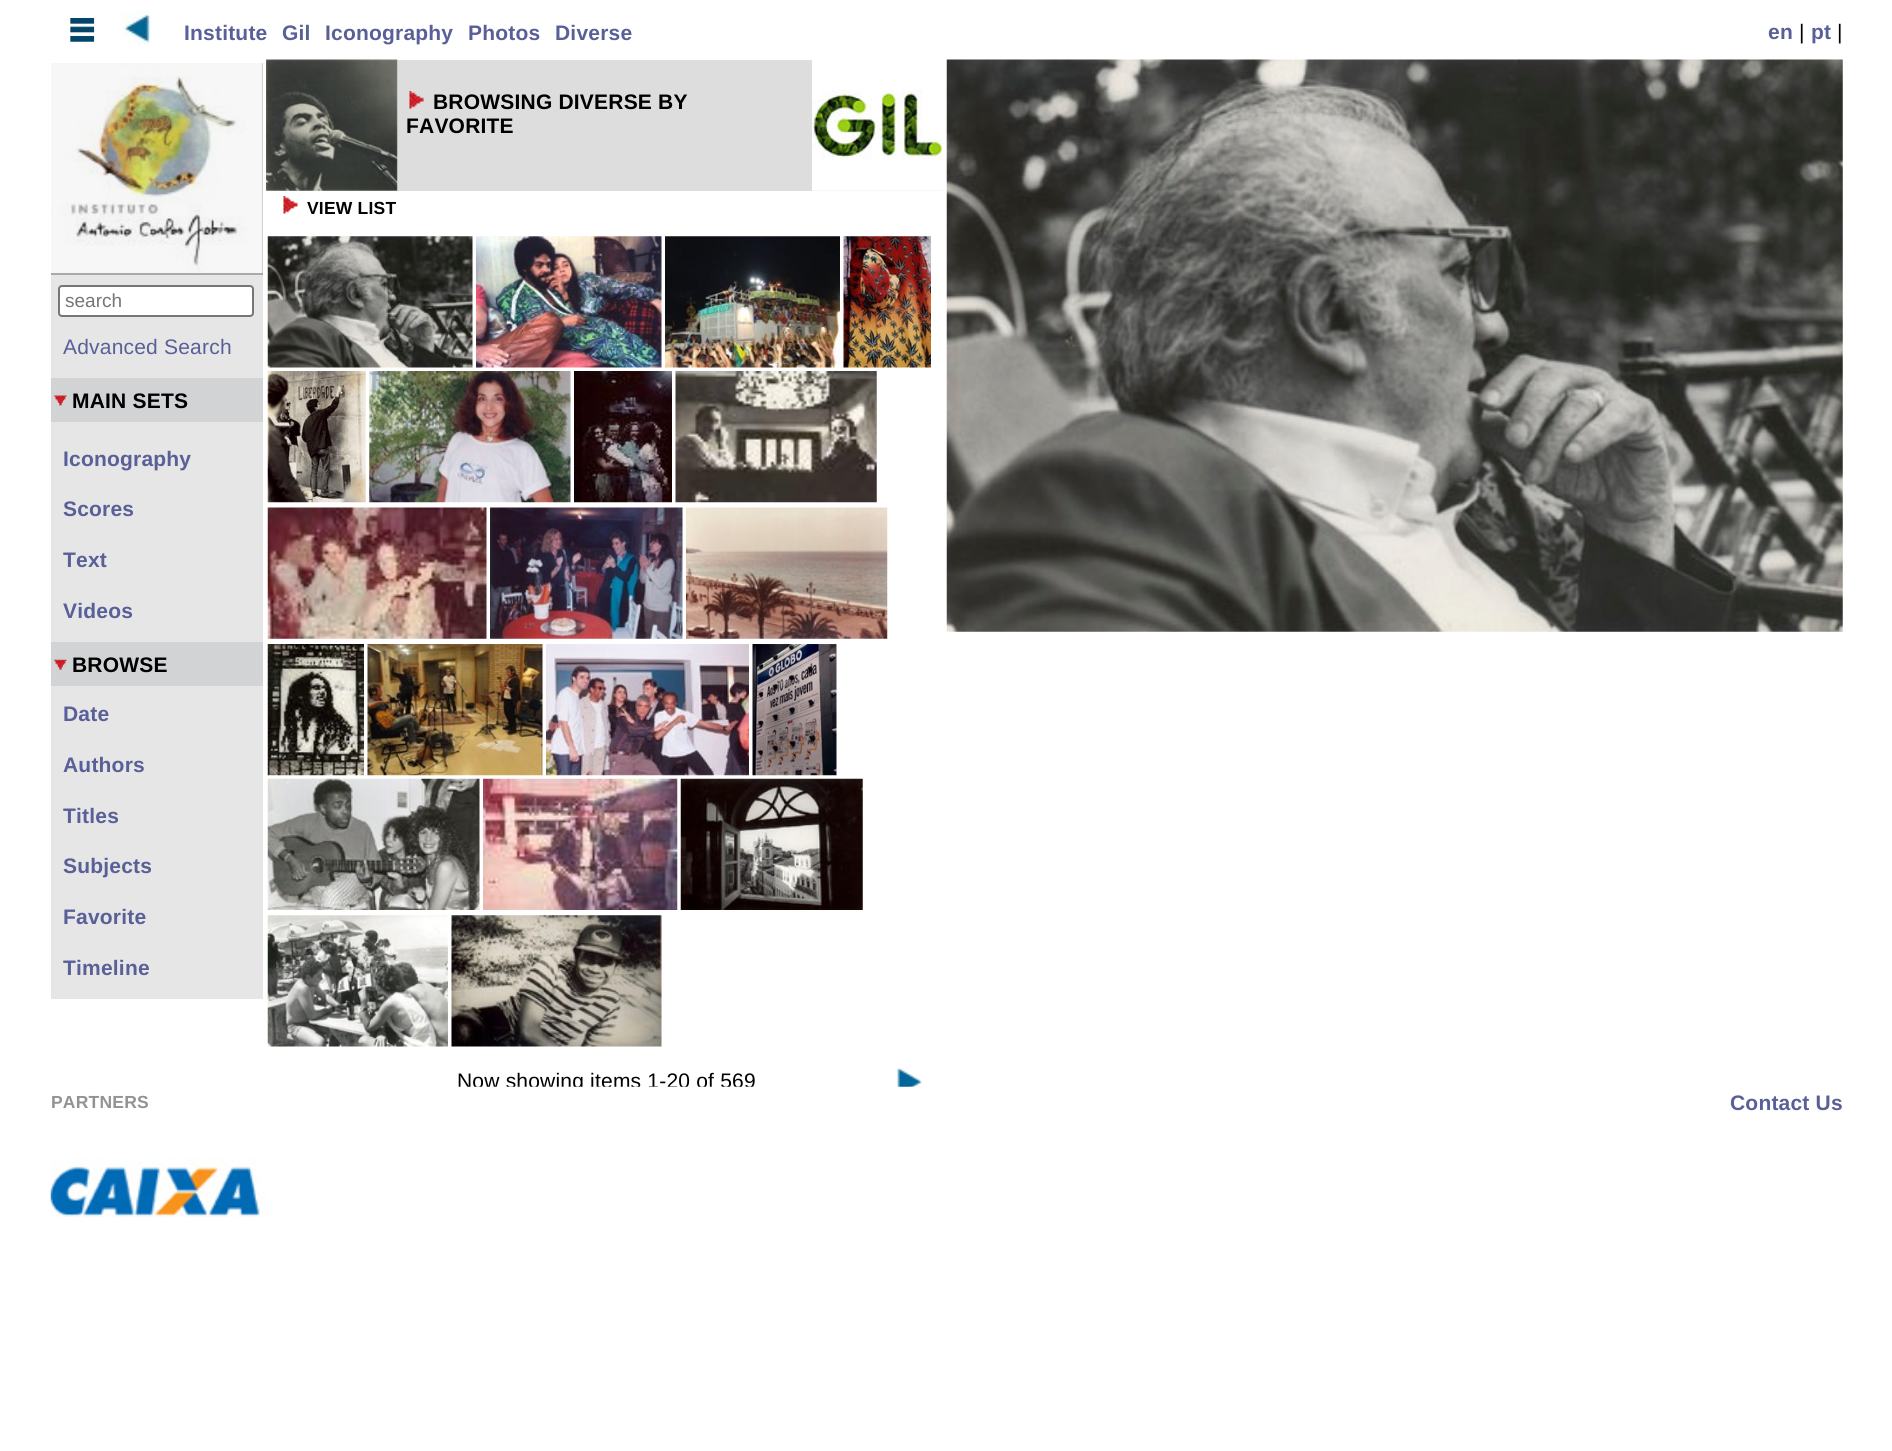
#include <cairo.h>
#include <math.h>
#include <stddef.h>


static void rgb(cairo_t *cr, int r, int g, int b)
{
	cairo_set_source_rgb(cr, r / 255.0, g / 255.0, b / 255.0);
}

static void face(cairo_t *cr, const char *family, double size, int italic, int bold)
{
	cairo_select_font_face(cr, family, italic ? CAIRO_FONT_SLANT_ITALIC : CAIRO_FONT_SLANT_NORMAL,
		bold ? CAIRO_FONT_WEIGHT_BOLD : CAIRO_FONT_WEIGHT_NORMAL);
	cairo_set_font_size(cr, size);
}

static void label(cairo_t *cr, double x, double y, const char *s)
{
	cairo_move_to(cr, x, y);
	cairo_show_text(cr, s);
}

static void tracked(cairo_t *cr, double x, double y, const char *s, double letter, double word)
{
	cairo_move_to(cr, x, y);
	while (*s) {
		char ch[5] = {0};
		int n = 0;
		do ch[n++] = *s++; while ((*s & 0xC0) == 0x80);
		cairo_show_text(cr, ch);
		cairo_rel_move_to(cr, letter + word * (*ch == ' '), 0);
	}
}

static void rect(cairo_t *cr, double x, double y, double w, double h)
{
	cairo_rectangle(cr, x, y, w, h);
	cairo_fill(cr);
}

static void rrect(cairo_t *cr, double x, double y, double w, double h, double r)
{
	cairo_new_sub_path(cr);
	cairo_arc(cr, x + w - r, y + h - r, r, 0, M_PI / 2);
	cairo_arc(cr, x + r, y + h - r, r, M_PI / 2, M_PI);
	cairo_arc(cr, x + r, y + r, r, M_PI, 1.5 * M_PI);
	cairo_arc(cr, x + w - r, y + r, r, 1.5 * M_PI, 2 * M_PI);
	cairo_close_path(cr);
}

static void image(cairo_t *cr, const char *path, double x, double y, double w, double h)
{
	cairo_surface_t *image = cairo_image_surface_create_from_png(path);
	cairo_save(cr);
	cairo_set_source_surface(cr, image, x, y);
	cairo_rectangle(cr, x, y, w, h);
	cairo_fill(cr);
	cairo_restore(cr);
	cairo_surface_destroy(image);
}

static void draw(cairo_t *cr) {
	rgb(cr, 255, 255, 255);
	cairo_paint(cr);
	image(cr, "image0.png", 70, 17, 25, 25);
	image(cr, "image1.png", 121, 10, 30, 36);
	face(cr, "Liberation Sans", 21, 0, 1);
	rgb(cr, 89, 95, 151);
	tracked(cr, 184, 40, "Institute", 0.2, 0);
	tracked(cr, 282, 40, "Gil", 0.2, 0);
	tracked(cr, 325, 40, "Iconography", 0.2, 0);
	tracked(cr, 468, 40, "Photos", 0.2, 0);
	tracked(cr, 555, 40, "Diverse", 0.2, 0);
	tracked(cr, 1768, 39, "en", 0.2, 0);
	face(cr, "Liberation Sans", 21, 0, 0);
	rgb(cr, 0, 0, 0);
	tracked(cr, 1799, 39, "|", 0.2, 0);
	face(cr, "Liberation Sans", 21, 0, 1);
	rgb(cr, 89, 95, 151);
	tracked(cr, 1811, 39, "pt", 0.2, 0);
	face(cr, "Liberation Sans", 21, 0, 0);
	rgb(cr, 0, 0, 0);
	tracked(cr, 1837, 39, "|", 0.2, 0);
	rgb(cr, 230, 230, 230);
	rect(cr, 51, 275, 212, 724);
	rgb(cr, 170, 170, 170);
	rect(cr, 51, 63, 212, 212);
	image(cr, "image2.png", 51, 63, 212, 210);
	rgb(cr, 255, 255, 255);
	rrect(cr, 59, 286, 194, 30, 3);
	cairo_fill_preserve(cr);
	rgb(cr, 118, 118, 118);
	cairo_stroke(cr);
	face(cr, "Liberation Sans", 19, 0, 0);
	rgb(cr, 117, 117, 117);
	label(cr, 65, 307, "search");
	face(cr, "Liberation Sans", 21, 0, 0);
	rgb(cr, 89, 95, 151);
	tracked(cr, 63, 354, "Advanced Search", 0.2, 0);
	rgb(cr, 209, 211, 212);
	rect(cr, 51, 378, 212, 44);
	image(cr, "image3.png", 54, 395, 13, 11);
	face(cr, "Liberation Sans", 21, 0, 1);
	rgb(cr, 0, 0, 0);
	tracked(cr, 72, 408, "MAIN SETS", 0.2, 0);
	rgb(cr, 89, 95, 151);
	tracked(cr, 63, 466, "Iconography", 0.2, 0);
	tracked(cr, 63, 516, "Scores", 0.2, 0);
	tracked(cr, 63, 567, "Text", 0.2, 0);
	tracked(cr, 63, 618, "Videos", 0.2, 0);
	rgb(cr, 209, 211, 212);
	rect(cr, 51, 642, 212, 44);
	image(cr, "image4.png", 54, 659, 13, 11);
	rgb(cr, 0, 0, 0);
	tracked(cr, 72, 672, "BROWSE", 0.2, 0);
	rgb(cr, 89, 95, 151);
	tracked(cr, 63, 721, "Date", 0.2, 0);
	tracked(cr, 63, 772, "Authors", 0.2, 0);
	tracked(cr, 63, 823, "Titles", 0.2, 0);
	tracked(cr, 63, 873, "Subjects", 0.2, 0);
	tracked(cr, 63, 924, "Favorite", 0.2, 0);
	tracked(cr, 63, 975, "Timeline", 0.2, 0);
	rgb(cr, 221, 221, 221);
	rect(cr, 266, 60, 677, 131);
	image(cr, "image5.png", 266, 59, 132, 132);
	image(cr, "image6.png", 812, 60, 131, 131);
	image(cr, "image7.png", 946, 59, 897, 573);
	image(cr, "image8.png", 409, 91, 15, 18);
	rgb(cr, 0, 0, 0);
	tracked(cr, 433, 109, "BROWSING DIVERSE BY", 0.2, 0);
	tracked(cr, 406, 133, "FAVORITE", 0.2, 0);
	image(cr, "image9.png", 283, 196, 15, 18);
	face(cr, "Liberation Sans", 17.5, 0, 1);
	tracked(cr, 307, 214, "VIEW LIST", 0.2, 0);
	image(cr, "image10.png", 267, 236, 206, 132);
	image(cr, "image11.png", 476, 236, 186, 132);
	image(cr, "image12.png", 665, 236, 175, 132);
	image(cr, "image13.png", 843, 236, 88, 132);
	image(cr, "image14.png", 267, 371, 99, 132);
	image(cr, "image15.png", 369, 371, 202, 132);
	image(cr, "image16.png", 574, 371, 98, 132);
	image(cr, "image17.png", 675, 371, 202, 132);
	image(cr, "image18.png", 267, 507, 220, 132);
	image(cr, "image19.png", 490, 507, 193, 132);
	image(cr, "image20.png", 686, 507, 202, 132);
	image(cr, "image21.png", 267, 644, 97, 132);
	image(cr, "image22.png", 367, 644, 176, 132);
	image(cr, "image23.png", 546, 644, 203, 132);
	image(cr, "image24.png", 752, 644, 85, 132);
	image(cr, "image25.png", 267, 778, 213, 132);
	image(cr, "image26.png", 483, 778, 195, 132);
	image(cr, "image27.png", 680, 778, 183, 132);
	image(cr, "image28.png", 267, 915, 181, 132);
	image(cr, "image29.png", 451, 915, 211, 132);
	face(cr, "Liberation Sans", 21, 0, 0);
	tracked(cr, 457, 1088, "Now showing items 1-20 of 569", 0.2, 0);
	image(cr, "image30.png", 897, 1067, 26, 20);
	image(cr, "image31.png", 50, 1086, 703, 132);
	face(cr, "Liberation Sans", 17.5, 0, 1);
	rgb(cr, 147, 147, 147);
	tracked(cr, 51, 1108, "PARTNERS", 0.2, 0);
	face(cr, "Liberation Sans", 21, 0, 1);
	rgb(cr, 89, 95, 151);
	tracked(cr, 1730, 1110, "Contact Us", 0.2, 0);
}

int main(void) {
	cairo_surface_t *surface = cairo_image_surface_create(CAIRO_FORMAT_RGB24, 1892, 1451);
	cairo_t *cr = cairo_create(surface);
	cairo_font_options_t *options = cairo_font_options_create();
	cairo_font_options_set_hint_metrics(options, CAIRO_HINT_METRICS_OFF);
	cairo_font_options_set_hint_style(options, CAIRO_HINT_STYLE_NONE);
	cairo_set_font_options(cr, options);
	cairo_set_miter_limit(cr, 4);
	draw(cr);
	cairo_surface_write_to_png(surface, "render.png");
	cairo_font_options_destroy(options);
	cairo_destroy(cr);
	cairo_surface_destroy(surface);
	return 0;
}
